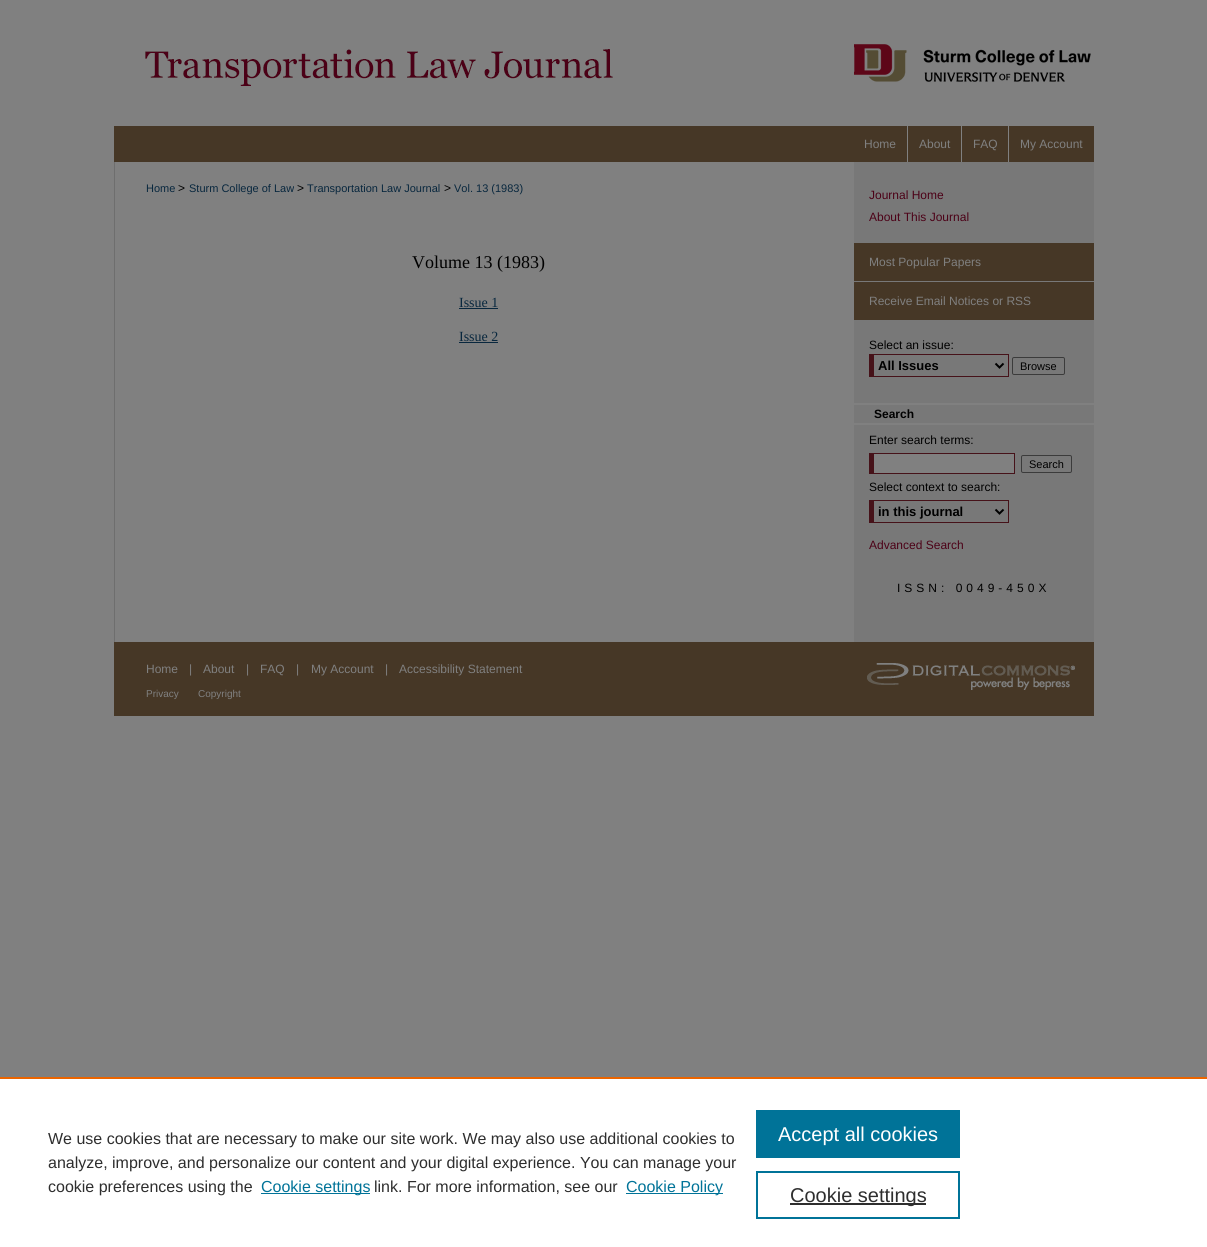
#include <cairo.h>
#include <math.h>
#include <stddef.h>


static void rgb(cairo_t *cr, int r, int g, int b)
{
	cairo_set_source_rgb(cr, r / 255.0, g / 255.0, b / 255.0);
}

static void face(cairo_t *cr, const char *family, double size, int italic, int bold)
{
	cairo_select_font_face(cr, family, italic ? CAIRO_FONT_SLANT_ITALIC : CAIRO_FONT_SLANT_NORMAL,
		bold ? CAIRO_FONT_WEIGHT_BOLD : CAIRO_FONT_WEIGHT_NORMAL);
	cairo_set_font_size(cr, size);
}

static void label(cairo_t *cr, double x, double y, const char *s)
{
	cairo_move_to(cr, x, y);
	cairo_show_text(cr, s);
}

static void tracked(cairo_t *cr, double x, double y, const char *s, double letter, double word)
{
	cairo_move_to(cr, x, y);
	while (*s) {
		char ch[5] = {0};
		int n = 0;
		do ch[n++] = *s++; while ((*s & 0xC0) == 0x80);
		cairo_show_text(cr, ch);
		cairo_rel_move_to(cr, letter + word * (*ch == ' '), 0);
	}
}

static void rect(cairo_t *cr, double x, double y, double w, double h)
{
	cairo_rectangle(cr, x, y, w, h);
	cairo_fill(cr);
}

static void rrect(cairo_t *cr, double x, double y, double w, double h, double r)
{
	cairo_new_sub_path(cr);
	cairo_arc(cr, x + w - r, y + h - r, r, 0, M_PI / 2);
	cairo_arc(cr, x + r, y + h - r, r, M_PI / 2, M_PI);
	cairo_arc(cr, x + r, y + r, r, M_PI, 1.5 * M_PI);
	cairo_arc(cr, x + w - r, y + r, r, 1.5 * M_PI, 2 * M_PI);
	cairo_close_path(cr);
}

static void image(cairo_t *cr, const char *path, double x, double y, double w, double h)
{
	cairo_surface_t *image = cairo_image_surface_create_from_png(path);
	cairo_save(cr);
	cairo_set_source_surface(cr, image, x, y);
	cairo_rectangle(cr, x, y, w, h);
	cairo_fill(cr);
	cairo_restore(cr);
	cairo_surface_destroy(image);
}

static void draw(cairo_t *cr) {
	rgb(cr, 128, 128, 128);
	cairo_paint(cr);
	image(cr, "image0.png", 145, 44, 946, 42);
	rgb(cr, 70, 55, 38);
	rect(cr, 114, 126, 980, 36);
	rgb(cr, 128, 128, 128);
	rect(cr, 907, 126, 1, 36);
	face(cr, "Liberation Sans", 12, 0, 0);
	label(cr, 864, 148, "Home");
	rect(cr, 961, 126, 1, 36);
	label(cr, 919, 148, "About");
	rect(cr, 1008, 126, 1, 36);
	label(cr, 973, 148, "FAQ");
	label(cr, 1020, 148, "My Account");
	image(cr, "image1.png", 114, 162, 980, 480);
	face(cr, "Liberation Sans", 11, 0, 0);
	rgb(cr, 8, 39, 62);
	label(cr, 146, 192, "Home");
	face(cr, "Liberation Sans", 12, 0, 0);
	rgb(cr, 0, 0, 0);
	label(cr, 178, 192, ">");
	face(cr, "Liberation Sans", 11, 0, 0);
	rgb(cr, 8, 39, 62);
	label(cr, 189, 192, "Sturm College of Law");
	face(cr, "Liberation Sans", 12, 0, 0);
	rgb(cr, 0, 0, 0);
	label(cr, 297, 192, ">");
	face(cr, "Liberation Sans", 11, 0, 0);
	rgb(cr, 8, 39, 62);
	label(cr, 307, 192, "Transportation Law Journal");
	face(cr, "Liberation Sans", 12, 0, 0);
	rgb(cr, 0, 0, 0);
	label(cr, 444, 192, ">");
	face(cr, "Liberation Sans", 11, 0, 0);
	rgb(cr, 8, 39, 62);
	label(cr, 454, 192, "Vol. 13 (1983)");
	face(cr, "Liberation Serif", 18, 0, 0);
	rgb(cr, 0, 0, 0);
	label(cr, 412, 268, "Volume 13 (1983)");
	face(cr, "Liberation Serif", 14, 0, 0);
	rgb(cr, 8, 39, 62);
	label(cr, 459, 307, "Issue 1");
	rect(cr, 459, 308, 39, 1);
	label(cr, 459, 341, "Issue 2");
	rect(cr, 459, 342, 39, 1);
	face(cr, "Liberation Sans", 12, 0, 0);
	rgb(cr, 76, 1, 23);
	label(cr, 869, 199, "Journal Home");
	label(cr, 869, 221, "About This Journal");
	rgb(cr, 70, 55, 38);
	rect(cr, 854, 243, 240, 38);
	rgb(cr, 128, 128, 128);
	label(cr, 869, 266, "Most Popular Papers");
	rgb(cr, 70, 55, 38);
	rect(cr, 854, 282, 240, 38);
	rgb(cr, 128, 128, 128);
	label(cr, 869, 305, "Receive Email Notices or RSS");
	rgb(cr, 0, 0, 0);
	label(cr, 869, 349, "Select an issue:");
	rgb(cr, 70, 18, 25);
	rect(cr, 869, 354, 140, 1);
	rect(cr, 1008, 354, 1, 23);
	rect(cr, 869, 376, 140, 1);
	rect(cr, 869, 354, 5, 23);
	cairo_new_path(cr);
	cairo_move_to(cr, 995.5, 363.5);
	cairo_line_to(cr, 999.5, 367.5);
	cairo_line_to(cr, 1003.5, 363.5);
	rgb(cr, 0, 0, 0);
	cairo_stroke(cr);
	face(cr, "Liberation Sans", 13, 0, 1);
	label(cr, 878, 370, "All Issues");
	rrect(cr, 1012.5, 357.5, 52, 17, 1.5);
	rgb(cr, 59, 59, 59);
	cairo_set_line_width(cr, 1);
	cairo_stroke(cr);
	face(cr, "Liberation Sans", 11, 0, 0);
	rgb(cr, 0, 0, 0);
	label(cr, 1020, 370, "Browse");
	rgb(cr, 128, 128, 128);
	rect(cr, 854, 403, 240, 2);
	rect(cr, 854, 423, 240, 2);
	face(cr, "Liberation Sans", 12, 0, 1);
	rgb(cr, 0, 0, 0);
	label(cr, 874, 418, "Search");
	face(cr, "Liberation Sans", 12, 0, 0);
	label(cr, 869, 444, "Enter search terms:");
	rgb(cr, 128, 128, 128);
	rect(cr, 874, 454, 140, 19);
	rgb(cr, 70, 18, 25);
	rect(cr, 869, 453, 146, 1);
	rect(cr, 1014, 453, 1, 21);
	rect(cr, 869, 473, 146, 1);
	rect(cr, 869, 453, 5, 21);
	rrect(cr, 1021.5, 455.5, 50, 17, 1.5);
	rgb(cr, 59, 59, 59);
	cairo_stroke(cr);
	face(cr, "Liberation Sans", 11, 0, 0);
	rgb(cr, 0, 0, 0);
	label(cr, 1029, 468, "Search");
	face(cr, "Liberation Sans", 12, 0, 0);
	label(cr, 869, 491, "Select context to search:");
	rgb(cr, 70, 18, 25);
	rect(cr, 869, 500, 140, 1);
	rect(cr, 1008, 500, 1, 23);
	rect(cr, 869, 522, 140, 1);
	rect(cr, 869, 500, 5, 23);
	cairo_new_path(cr);
	cairo_move_to(cr, 995.5, 509.5);
	cairo_line_to(cr, 999.5, 513.5);
	cairo_line_to(cr, 1003.5, 509.5);
	rgb(cr, 0, 0, 0);
	cairo_set_line_width(cr, 2);
	cairo_stroke(cr);
	face(cr, "Liberation Sans", 13, 0, 1);
	label(cr, 878, 516, "in this journal");
	face(cr, "Liberation Sans", 12, 0, 0);
	rgb(cr, 76, 1, 23);
	label(cr, 869, 549, "Advanced Search");
	rgb(cr, 0, 0, 0);
	tracked(cr, 897, 592, "ISSN: 0049-450X", 4, 0);
	rgb(cr, 70, 55, 38);
	rect(cr, 114, 642, 980, 74);
	rgb(cr, 128, 128, 128);
	label(cr, 146, 673, "Home");
	label(cr, 189, 673, "|");
	label(cr, 203, 673, "About");
	label(cr, 246, 673, "|");
	label(cr, 260, 673, "FAQ");
	label(cr, 296, 673, "|");
	label(cr, 311, 673, "My Account");
	label(cr, 385, 673, "|");
	label(cr, 399, 673, "Accessibility Statement");
	image(cr, "image2.png", 867, 663, 208, 27);
	face(cr, "Liberation Sans", 10, 0, 0);
	label(cr, 146, 697, "Privacy");
	label(cr, 198, 697, "Copyright");
	rgb(cr, 255, 255, 255);
	rect(cr, 0, 1079, 1207, 168);
	rgb(cr, 235, 101, 0);
	rect(cr, 0, 1077, 1207, 2);
	face(cr, "Liberation Sans", 16, 0, 0);
	rgb(cr, 46, 46, 46);
	label(cr, 48, 1144, "We use cookies that are necessary to make our site work. We may also use additional cookies to");
	label(cr, 48, 1168, "analyze, improve, and personalize our content and your digital experience. You can manage your");
	label(cr, 48, 1192, "cookie preferences using the");
	rgb(cr, 0, 115, 152);
	rect(cr, 261, 1193, 109, 1);
	label(cr, 261, 1192, "Cookie settings");
	rgb(cr, 46, 46, 46);
	label(cr, 374, 1192, "link. For more information, see our");
	rgb(cr, 0, 115, 152);
	rect(cr, 626, 1193, 97, 1);
	label(cr, 626, 1192, "Cookie Policy");
	rect(cr, 756, 1110, 204, 48);
	face(cr, "Liberation Sans", 20, 0, 0);
	rgb(cr, 255, 255, 255);
	label(cr, 778, 1141, "Accept all cookies");
	cairo_rectangle(cr, 757, 1172, 202, 46);
	rgb(cr, 0, 115, 152);
	cairo_stroke(cr);
	rgb(cr, 46, 46, 46);
	rect(cr, 790, 1203, 136, 2);
	label(cr, 790, 1202, "Cookie settings");
}

int main(void) {
	cairo_surface_t *surface = cairo_image_surface_create(CAIRO_FORMAT_RGB24, 1207, 1247);
	cairo_t *cr = cairo_create(surface);
	cairo_font_options_t *options = cairo_font_options_create();
	cairo_font_options_set_hint_metrics(options, CAIRO_HINT_METRICS_OFF);
	cairo_font_options_set_hint_style(options, CAIRO_HINT_STYLE_NONE);
	cairo_set_font_options(cr, options);
	cairo_set_miter_limit(cr, 4);
	draw(cr);
	cairo_surface_write_to_png(surface, "render.png");
	cairo_font_options_destroy(options);
	cairo_destroy(cr);
	cairo_surface_destroy(surface);
	return 0;
}
